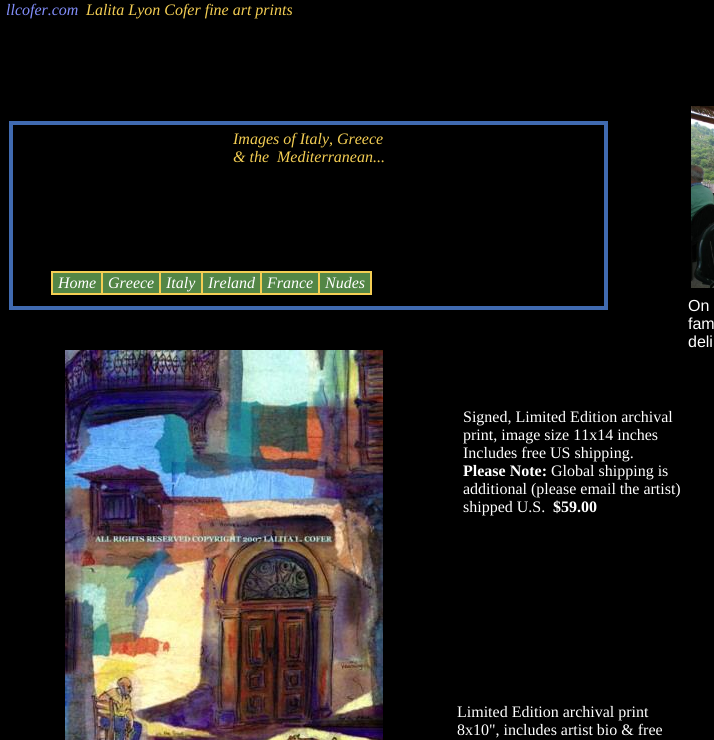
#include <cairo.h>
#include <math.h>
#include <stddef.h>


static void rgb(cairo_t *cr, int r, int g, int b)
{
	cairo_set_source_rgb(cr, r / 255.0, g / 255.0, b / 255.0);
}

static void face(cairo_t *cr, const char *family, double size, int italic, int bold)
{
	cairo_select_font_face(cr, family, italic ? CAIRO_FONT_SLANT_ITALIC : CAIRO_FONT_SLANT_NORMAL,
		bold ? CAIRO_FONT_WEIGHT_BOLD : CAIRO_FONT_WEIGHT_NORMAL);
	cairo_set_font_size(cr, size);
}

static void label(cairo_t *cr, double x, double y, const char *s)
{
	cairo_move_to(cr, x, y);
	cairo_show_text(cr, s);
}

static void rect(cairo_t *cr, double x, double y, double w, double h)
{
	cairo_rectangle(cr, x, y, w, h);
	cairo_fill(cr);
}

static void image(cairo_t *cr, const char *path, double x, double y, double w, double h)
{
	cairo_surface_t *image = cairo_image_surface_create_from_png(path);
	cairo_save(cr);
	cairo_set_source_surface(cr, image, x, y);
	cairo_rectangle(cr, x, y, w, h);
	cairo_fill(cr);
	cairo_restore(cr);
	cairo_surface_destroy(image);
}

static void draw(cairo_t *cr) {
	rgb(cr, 0, 0, 0);
	cairo_paint(cr);
	face(cr, "Liberation Serif", 16, 1, 0);
	rgb(cr, 130, 142, 251);
	label(cr, 6, 15, "llcofer.com");
	rgb(cr, 244, 206, 83);
	label(cr, 86, 15, "Lalita Lyon Cofer fine art prints");
	cairo_rectangle(cr, 11, 123, 595, 185);
	rgb(cr, 64, 106, 176);
	cairo_set_line_width(cr, 4);
	cairo_stroke(cr);
	rgb(cr, 244, 206, 83);
	label(cr, 233, 144, "Images of Italy, Greece");
	label(cr, 233, 162, "& the  Mediterranean...");
	image(cr, "image0.png", 691, 106, 23, 182);
	rect(cr, 51, 271, 321, 2);
	rect(cr, 51, 273, 2, 20);
	rgb(cr, 83, 134, 70);
	rect(cr, 53, 273, 317, 20);
	rgb(cr, 255, 255, 255);
	label(cr, 58, 288, "Home");
	rgb(cr, 244, 206, 83);
	rect(cr, 101, 273, 2, 20);
	rgb(cr, 255, 255, 255);
	label(cr, 108, 288, "Greece");
	rgb(cr, 244, 206, 83);
	rect(cr, 159, 273, 2, 20);
	rgb(cr, 255, 255, 255);
	label(cr, 166, 288, "Italy");
	rgb(cr, 244, 206, 83);
	rect(cr, 201, 273, 2, 20);
	rgb(cr, 255, 255, 255);
	label(cr, 208, 288, "Ireland");
	rgb(cr, 244, 206, 83);
	rect(cr, 260, 273, 2, 20);
	rgb(cr, 255, 255, 255);
	label(cr, 267, 288, "France");
	rgb(cr, 244, 206, 83);
	rect(cr, 318, 273, 2, 20);
	rgb(cr, 255, 255, 255);
	label(cr, 325, 288, "Nudes");
	rgb(cr, 244, 206, 83);
	rect(cr, 370, 273, 2, 20);
	rect(cr, 51, 293, 321, 2);
	face(cr, "Liberation Sans", 16, 0, 0);
	rgb(cr, 255, 255, 255);
	label(cr, 688, 311, "On");
	label(cr, 688, 329, "fam");
	label(cr, 688, 347, "deli");
	image(cr, "image1.png", 65, 350, 318, 390);
	face(cr, "Liberation Serif", 16, 0, 0);
	label(cr, 463, 422, "Signed, Limited Edition archival");
	label(cr, 463, 440, "print, image size 11x14 inches");
	label(cr, 463, 458, "Includes free US shipping.");
	face(cr, "Liberation Serif", 16, 0, 1);
	label(cr, 463, 476, "Please Note:");
	face(cr, "Liberation Serif", 16, 0, 0);
	label(cr, 551, 476, "Global shipping is");
	label(cr, 463, 494, "additional (please email the artist)");
	label(cr, 463, 512, "shipped U.S.");
	face(cr, "Liberation Serif", 16, 0, 1);
	label(cr, 553, 512, "$59.00");
	face(cr, "Liberation Serif", 16, 0, 0);
	label(cr, 457, 717, "Limited Edition archival print");
	label(cr, 457, 735, "8x10\", includes artist bio & free");
}

int main(void) {
	cairo_surface_t *surface = cairo_image_surface_create(CAIRO_FORMAT_RGB24, 714, 740);
	cairo_t *cr = cairo_create(surface);
	cairo_font_options_t *options = cairo_font_options_create();
	cairo_font_options_set_hint_metrics(options, CAIRO_HINT_METRICS_OFF);
	cairo_font_options_set_hint_style(options, CAIRO_HINT_STYLE_NONE);
	cairo_set_font_options(cr, options);
	cairo_set_miter_limit(cr, 4);
	draw(cr);
	cairo_surface_write_to_png(surface, "render.png");
	cairo_font_options_destroy(options);
	cairo_destroy(cr);
	cairo_surface_destroy(surface);
	return 0;
}
